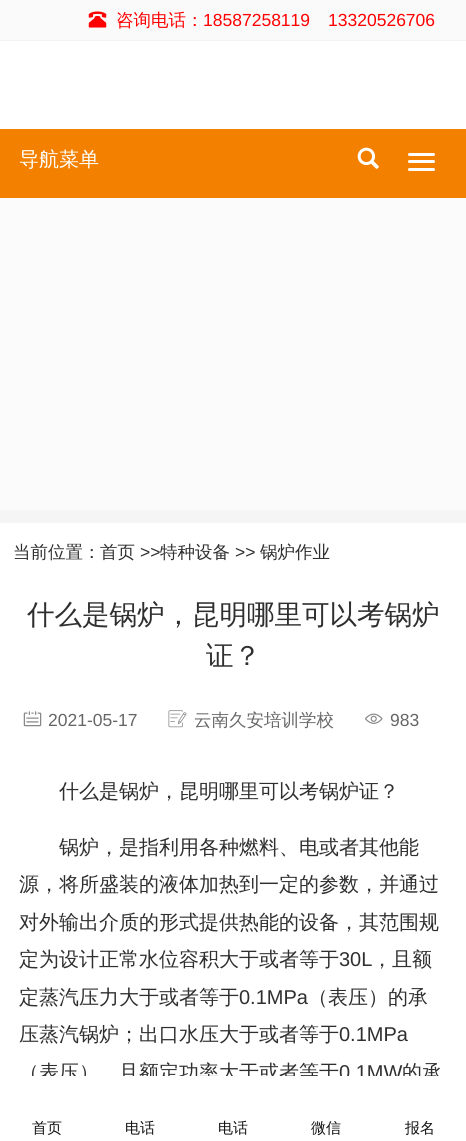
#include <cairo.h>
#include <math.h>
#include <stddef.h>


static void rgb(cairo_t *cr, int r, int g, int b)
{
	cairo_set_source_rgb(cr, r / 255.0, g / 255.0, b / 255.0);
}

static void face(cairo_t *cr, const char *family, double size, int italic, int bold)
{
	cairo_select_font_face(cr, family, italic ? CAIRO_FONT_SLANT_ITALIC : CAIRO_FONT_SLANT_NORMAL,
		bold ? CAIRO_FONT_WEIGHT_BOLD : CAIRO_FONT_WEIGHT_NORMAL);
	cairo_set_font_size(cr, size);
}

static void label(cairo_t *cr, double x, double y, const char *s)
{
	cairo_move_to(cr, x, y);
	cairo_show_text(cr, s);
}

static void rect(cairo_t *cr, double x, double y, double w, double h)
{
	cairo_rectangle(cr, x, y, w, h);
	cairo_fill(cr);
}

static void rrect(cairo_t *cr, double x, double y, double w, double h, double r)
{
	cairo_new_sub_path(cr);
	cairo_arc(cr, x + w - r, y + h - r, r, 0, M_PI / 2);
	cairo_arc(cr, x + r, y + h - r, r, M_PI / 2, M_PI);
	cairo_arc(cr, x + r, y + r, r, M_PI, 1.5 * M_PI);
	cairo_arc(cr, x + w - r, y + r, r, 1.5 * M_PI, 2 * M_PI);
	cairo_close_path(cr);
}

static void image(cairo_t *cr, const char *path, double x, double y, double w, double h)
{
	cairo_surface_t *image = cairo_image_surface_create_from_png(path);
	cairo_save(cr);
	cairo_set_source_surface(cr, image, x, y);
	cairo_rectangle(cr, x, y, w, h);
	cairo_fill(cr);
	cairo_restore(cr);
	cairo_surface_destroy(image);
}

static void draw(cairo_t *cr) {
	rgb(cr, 255, 255, 255);
	cairo_paint(cr);
	rgb(cr, 250, 250, 250);
	rect(cr, 0, 0, 466, 40);
	rgb(cr, 243, 243, 243);
	rect(cr, 0, 40, 466, 1);
	image(cr, "image0.png", 88, 11, 19, 17);
	face(cr, "WenQuanYi Zen Hei Medium", 17.5, 0, 0);
	rgb(cr, 255, 0, 0);
	label(cr, 116, 26, "咨询电话：");
	face(cr, "Liberation Sans", 17.5, 0, 0);
	label(cr, 203, 26, "18587258119");
	label(cr, 328, 26, "13320526706");
	rgb(cr, 244, 128, 0);
	rect(cr, 0, 129, 466, 69);
	face(cr, "WenQuanYi Zen Hei Medium", 20, 0, 0);
	rgb(cr, 255, 255, 255);
	label(cr, 19, 166, "导航菜单");
	image(cr, "image1.png", 357, 147, 22, 22);
	rrect(cr, 408, 153, 27, 3, 1.5);
	cairo_fill(cr);
	rrect(cr, 408, 160, 27, 3, 1.5);
	cairo_fill(cr);
	rrect(cr, 408, 168, 27, 3, 1.5);
	cairo_fill(cr);
	rgb(cr, 251, 251, 251);
	rect(cr, 0, 198, 466, 312);
	rgb(cr, 245, 245, 245);
	rect(cr, 0, 510, 466, 13);
	face(cr, "WenQuanYi Zen Hei Medium", 17.5, 0, 0);
	rgb(cr, 47, 47, 47);
	label(cr, 13, 558, "当前位置：");
	label(cr, 100, 558, "首页");
	face(cr, "Liberation Sans", 17.5, 0, 0);
	label(cr, 140, 558, ">>");
	face(cr, "WenQuanYi Zen Hei Medium", 17.5, 0, 0);
	label(cr, 160, 558, "特种设备");
	face(cr, "Liberation Sans", 17.5, 0, 0);
	label(cr, 235, 558, ">>");
	face(cr, "WenQuanYi Zen Hei Medium", 17.5, 0, 0);
	label(cr, 260, 558, "锅炉作业");
	face(cr, "WenQuanYi Zen Hei Medium", 27.5, 0, 0);
	label(cr, 27, 624, "什么是锅炉，昆明哪里可以考锅炉");
	label(cr, 206, 665, "证？");
	image(cr, "image2.png", 23, 711, 19, 16);
	face(cr, "Liberation Sans", 17.5, 0, 0);
	rgb(cr, 102, 102, 102);
	label(cr, 48, 726, "2021-05-17");
	image(cr, "image3.png", 168, 710, 19, 18);
	face(cr, "WenQuanYi Zen Hei Medium", 17.5, 0, 0);
	label(cr, 194, 726, "云南久安培训学校");
	image(cr, "image4.png", 365, 713, 18, 11);
	face(cr, "Liberation Sans", 17.5, 0, 0);
	label(cr, 390, 726, "983");
	face(cr, "WenQuanYi Zen Hei Medium", 20, 0, 0);
	rgb(cr, 47, 47, 47);
	label(cr, 59, 798, "什么是锅炉，昆明哪里可以考锅炉证？");
	label(cr, 59, 854, "锅炉，是指利用各种燃料、电或者其他能");
	label(cr, 19, 891, "源，将所盛装的液体加热到一定的参数，并通过");
	label(cr, 19, 929, "对外输出介质的形式提供热能的设备，其范围规");
	label(cr, 19, 966, "定为设计正常水位容积大于或者等于");
	face(cr, "Liberation Sans", 20, 0, 0);
	label(cr, 339, 966, "30L");
	face(cr, "WenQuanYi Zen Hei Medium", 20, 0, 0);
	label(cr, 372, 966, "，且额");
	label(cr, 19, 1004, "定蒸汽压力大于或者等于");
	face(cr, "Liberation Sans", 20, 0, 0);
	label(cr, 239, 1004, "0.1MPa");
	face(cr, "WenQuanYi Zen Hei Medium", 20, 0, 0);
	label(cr, 308, 1004, "（表压）的承");
	label(cr, 19, 1041, "压蒸汽锅炉；出口水压大于或者等于");
	face(cr, "Liberation Sans", 20, 0, 0);
	label(cr, 339, 1041, "0.1MPa");
	face(cr, "WenQuanYi Zen Hei Medium", 20, 0, 0);
	label(cr, 19, 1079, "（表压），且额定功率大于或者等于");
	face(cr, "Liberation Sans", 20, 0, 0);
	label(cr, 339, 1079, "0.1MW");
	face(cr, "WenQuanYi Zen Hei Medium", 20, 0, 0);
	label(cr, 402, 1079, "的承");
	cairo_set_source_rgba(cr, 1, 1, 1, 0.95);
	rect(cr, 32, 1076, 410, 7);
	rrect(cr, 0, 1076, 94, 65, 5);
	cairo_fill(cr);
	face(cr, "WenQuanYi Zen Hei Medium", 15, 0, 0);
	rgb(cr, 17, 17, 17);
	label(cr, 32, 1133, "首页");
	cairo_set_source_rgba(cr, 1, 1, 1, 0.95);
	rrect(cr, 94, 1076, 92, 65, 5);
	cairo_fill(cr);
	rgb(cr, 17, 17, 17);
	label(cr, 125, 1133, "电话");
	cairo_set_source_rgba(cr, 1, 1, 1, 0.95);
	rrect(cr, 186, 1076, 94, 65, 5);
	cairo_fill(cr);
	rgb(cr, 17, 17, 17);
	label(cr, 218, 1133, "电话");
	cairo_set_source_rgba(cr, 1, 1, 1, 0.95);
	rrect(cr, 280, 1076, 93, 65, 5);
	cairo_fill(cr);
	rgb(cr, 17, 17, 17);
	label(cr, 311, 1133, "微信");
	cairo_set_source_rgba(cr, 1, 1, 1, 0.95);
	rrect(cr, 373, 1076, 93, 65, 5);
	cairo_fill(cr);
	rgb(cr, 17, 17, 17);
	label(cr, 405, 1133, "报名");
}

int main(void) {
	cairo_surface_t *surface = cairo_image_surface_create(CAIRO_FORMAT_RGB24, 466, 1141);
	cairo_t *cr = cairo_create(surface);
	cairo_font_options_t *options = cairo_font_options_create();
	cairo_font_options_set_hint_metrics(options, CAIRO_HINT_METRICS_OFF);
	cairo_font_options_set_hint_style(options, CAIRO_HINT_STYLE_NONE);
	cairo_set_font_options(cr, options);
	cairo_set_miter_limit(cr, 4);
	draw(cr);
	cairo_surface_write_to_png(surface, "render.png");
	cairo_font_options_destroy(options);
	cairo_destroy(cr);
	cairo_surface_destroy(surface);
	return 0;
}
